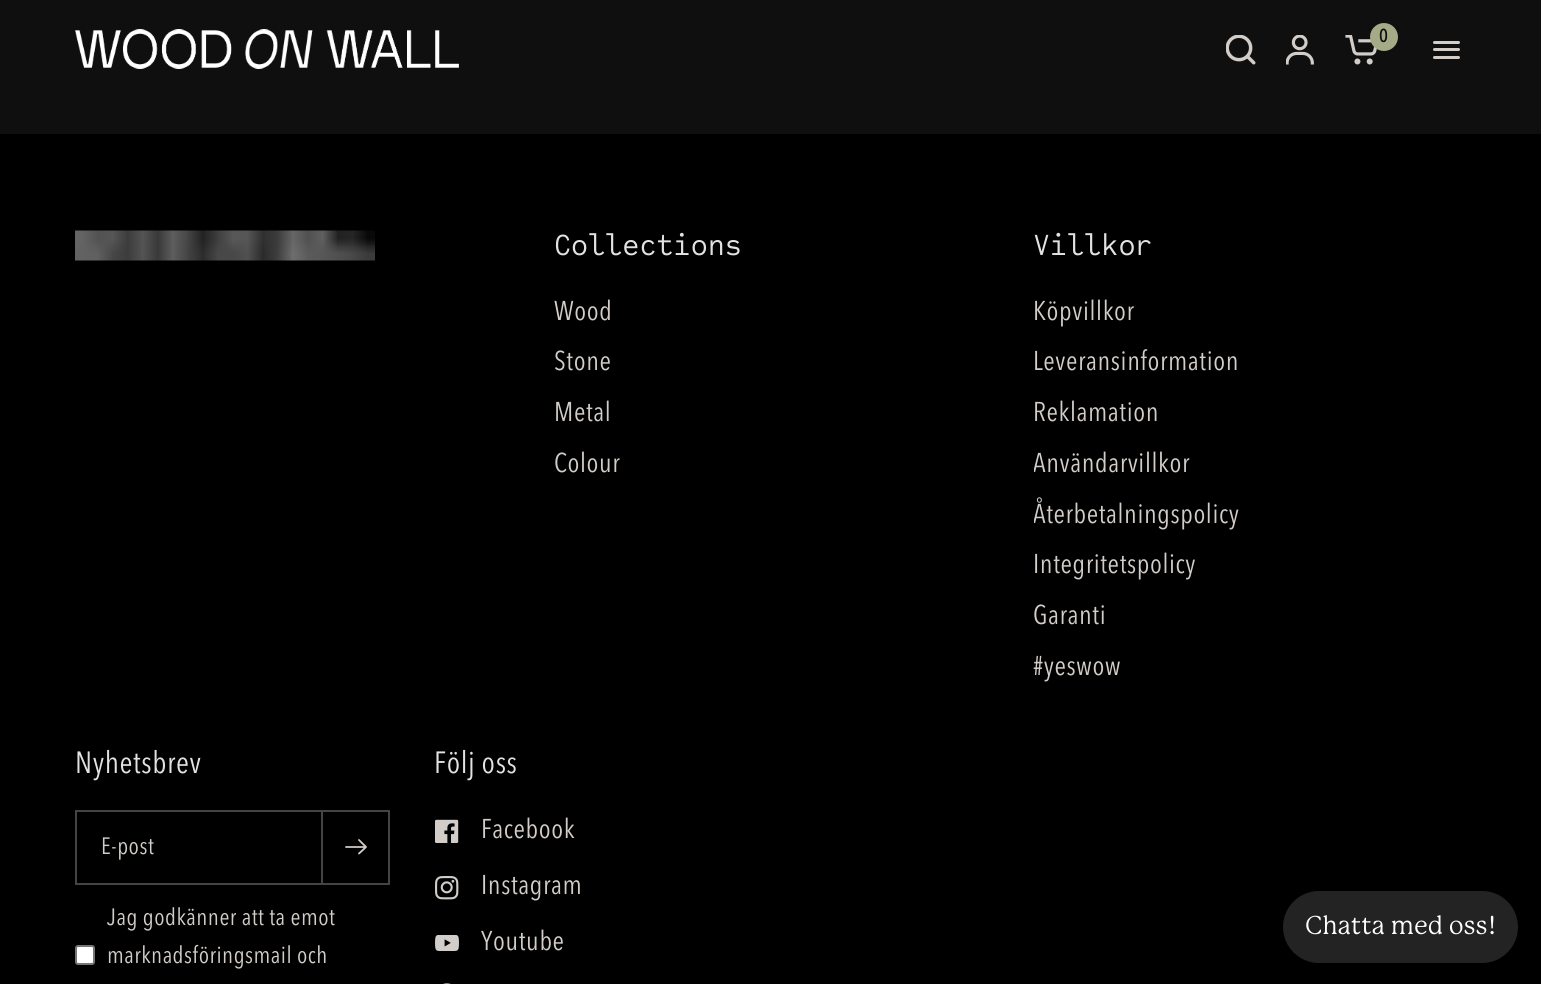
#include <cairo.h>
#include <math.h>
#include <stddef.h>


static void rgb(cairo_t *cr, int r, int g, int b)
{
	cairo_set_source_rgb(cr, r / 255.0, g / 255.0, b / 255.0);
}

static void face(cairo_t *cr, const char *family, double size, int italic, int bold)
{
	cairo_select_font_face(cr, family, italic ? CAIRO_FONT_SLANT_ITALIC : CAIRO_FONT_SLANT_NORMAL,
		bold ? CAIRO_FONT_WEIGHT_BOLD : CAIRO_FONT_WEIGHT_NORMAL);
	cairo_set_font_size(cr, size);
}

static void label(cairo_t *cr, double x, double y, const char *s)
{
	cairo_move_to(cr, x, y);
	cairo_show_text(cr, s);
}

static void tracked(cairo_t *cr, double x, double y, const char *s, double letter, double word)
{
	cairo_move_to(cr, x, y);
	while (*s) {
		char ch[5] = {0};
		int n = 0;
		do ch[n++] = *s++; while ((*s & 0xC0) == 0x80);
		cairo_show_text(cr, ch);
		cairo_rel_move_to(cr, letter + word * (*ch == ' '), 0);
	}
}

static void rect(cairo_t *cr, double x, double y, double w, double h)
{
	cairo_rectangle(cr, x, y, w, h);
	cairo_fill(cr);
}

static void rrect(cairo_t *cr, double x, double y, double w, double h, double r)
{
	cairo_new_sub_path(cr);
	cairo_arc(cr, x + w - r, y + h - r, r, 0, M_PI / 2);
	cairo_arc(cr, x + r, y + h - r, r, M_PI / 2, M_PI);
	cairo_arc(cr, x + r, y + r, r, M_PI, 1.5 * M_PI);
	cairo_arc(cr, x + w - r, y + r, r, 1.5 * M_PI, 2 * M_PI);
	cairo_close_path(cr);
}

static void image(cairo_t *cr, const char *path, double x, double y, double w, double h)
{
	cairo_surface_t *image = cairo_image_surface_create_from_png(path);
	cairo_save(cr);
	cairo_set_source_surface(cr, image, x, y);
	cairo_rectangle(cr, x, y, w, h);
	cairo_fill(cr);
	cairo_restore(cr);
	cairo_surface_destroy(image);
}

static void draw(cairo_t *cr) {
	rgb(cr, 15, 15, 15);
	cairo_paint(cr);
	image(cr, "image0.png", 75, 29, 384, 40);
	image(cr, "image1.png", 1226, 35, 30, 30);
	image(cr, "image2.png", 1286, 35, 28, 30);
	image(cr, "image3.png", 1345, 35, 32, 30);
	rgb(cr, 165, 170, 135);
	cairo_arc(cr, 1384, 37, 14, 0, 2 * M_PI);
	cairo_fill(cr);
	face(cr, "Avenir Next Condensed", 18, 0, 1);
	rgb(cr, 15, 15, 15);
	tracked(cr, 1379, 42, "0", 0.6, 0);
	rgb(cr, 210, 205, 200);
	rrect(cr, 1433, 41, 27, 3, 1.5);
	cairo_fill(cr);
	rrect(cr, 1433, 48, 27, 3, 1.5);
	cairo_fill(cr);
	rrect(cr, 1433, 56, 27, 3, 1.5);
	cairo_fill(cr);
	rgb(cr, 0, 0, 0);
	rect(cr, 0, 134, 1541, 850);
	image(cr, "image4.png", 75, 230, 300, 31);
	face(cr, "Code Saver", 30.5, 0, 0);
	rgb(cr, 226, 226, 226);
	label(cr, 554, 255, "Collections");
	face(cr, "Avenir Next Condensed", 27, 0, 0);
	rgb(cr, 210, 205, 200);
	tracked(cr, 554, 320, "Wood", 0.6, 0);
	tracked(cr, 554, 370, "Stone", 0.6, 0);
	tracked(cr, 554, 421, "Metal", 0.6, 0);
	tracked(cr, 554, 472, "Colour", 0.6, 0);
	face(cr, "Code Saver", 30.5, 0, 0);
	rgb(cr, 226, 226, 226);
	label(cr, 1033, 255, "Villkor");
	face(cr, "Avenir Next Condensed", 27, 0, 0);
	rgb(cr, 210, 205, 200);
	tracked(cr, 1033, 320, "Köpvillkor", 0.6, 0);
	tracked(cr, 1033, 370, "Leveransinformation", 0.6, 0);
	tracked(cr, 1033, 421, "Reklamation", 0.6, 0);
	cairo_save(cr);
	cairo_rectangle(cr, 1034, 291, 433, 399);
	cairo_clip(cr);
	tracked(cr, 1033, 472, "Användarvillkor", 0.6, 0);
	tracked(cr, 1033, 523, "Återbetalningspolicy", 0.6, 0);
	cairo_restore(cr);
	tracked(cr, 1033, 573, "Integritetspolicy", 0.6, 0);
	tracked(cr, 1033, 624, "Garanti", 0.6, 0);
	tracked(cr, 1033, 675, "#yeswow", 0.6, 0);
	face(cr, "Avenir Next Condensed", 30.5, 0, 0);
	rgb(cr, 226, 226, 226);
	tracked(cr, 75, 773, "Nyhetsbrev", 0.6, 0);
	cairo_rectangle(cr, 76, 811, 313, 73);
	rgb(cr, 68, 68, 69);
	cairo_stroke(cr);
	face(cr, "Avenir Next Condensed", 23.5, 0, 0);
	rgb(cr, 210, 205, 200);
	tracked(cr, 101, 854, "E-post", 0.5, 0);
	rgb(cr, 68, 68, 69);
	rect(cr, 321, 812, 2, 72);
	cairo_new_path(cr);
	cairo_move_to(cr, 346, 847);
	cairo_line_to(cr, 364, 847);
	cairo_move_to(cr, 359, 840);
	cairo_line_to(cr, 366, 847);
	cairo_line_to(cr, 359, 853.5);
	rgb(cr, 210, 205, 200);
	cairo_set_line_width(cr, 1.8);
	cairo_set_line_cap(cr, CAIRO_LINE_CAP_ROUND);
	cairo_set_line_join(cr, CAIRO_LINE_JOIN_ROUND);
	cairo_stroke(cr);
	rgb(cr, 255, 255, 255);
	rrect(cr, 76, 946, 18, 18, 2);
	cairo_fill_preserve(cr);
	rgb(cr, 118, 118, 118);
	cairo_set_line_width(cr, 2);
	cairo_set_line_cap(cr, CAIRO_LINE_CAP_BUTT);
	cairo_set_line_join(cr, CAIRO_LINE_JOIN_MITER);
	cairo_stroke(cr);
	rgb(cr, 210, 205, 200);
	tracked(cr, 107, 925, "Jag godkänner att ta emot", 0.5, 0);
	tracked(cr, 107, 963, "marknadsföringsmail och", 0.5, 0);
	face(cr, "Avenir Next Condensed", 30.5, 0, 0);
	rgb(cr, 226, 226, 226);
	tracked(cr, 434, 773, "Följ oss", 0.6, 0);
	image(cr, "image5.png", 435, 819, 24, 24);
	face(cr, "Avenir Next Condensed", 27, 0, 0);
	rgb(cr, 210, 205, 200);
	tracked(cr, 481, 838, "Facebook", 0.6, 0);
	image(cr, "image6.png", 435, 876, 24, 24);
	tracked(cr, 481, 894, "Instagram", 0.6, 0);
	image(cr, "image7.png", 435, 935, 24, 16);
	tracked(cr, 481, 950, "Youtube", 0.6, 0);
	image(cr, "image8.png", 443, 983, 8, 1);
	rgb(cr, 35, 35, 35);
	rrect(cr, 1283, 891, 235, 72, 36);
	cairo_fill(cr);
	face(cr, "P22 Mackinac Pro", 25.25, 0, 0);
	rgb(cr, 255, 255, 255);
	label(cr, 1305, 934, "Chatta med oss!");
}

int main(void) {
	cairo_surface_t *surface = cairo_image_surface_create(CAIRO_FORMAT_RGB24, 1541, 984);
	cairo_t *cr = cairo_create(surface);
	cairo_font_options_t *options = cairo_font_options_create();
	cairo_font_options_set_hint_metrics(options, CAIRO_HINT_METRICS_OFF);
	cairo_font_options_set_hint_style(options, CAIRO_HINT_STYLE_NONE);
	cairo_set_font_options(cr, options);
	cairo_set_miter_limit(cr, 4);
	draw(cr);
	cairo_surface_write_to_png(surface, "render.png");
	cairo_font_options_destroy(options);
	cairo_destroy(cr);
	cairo_surface_destroy(surface);
	return 0;
}
